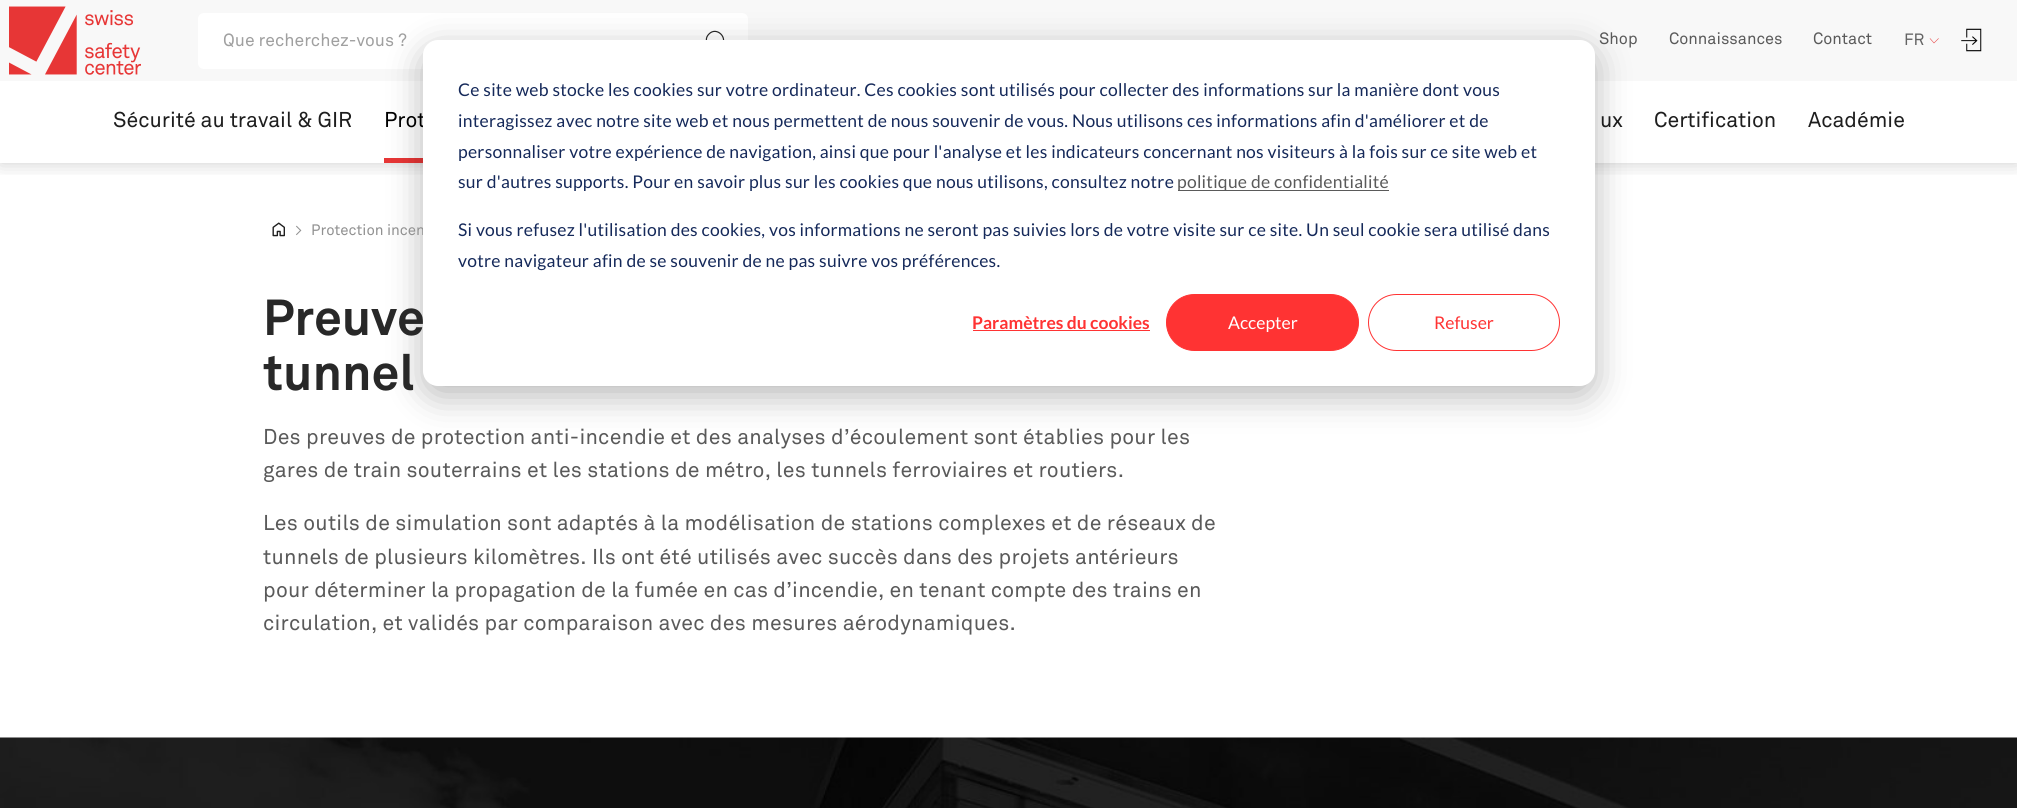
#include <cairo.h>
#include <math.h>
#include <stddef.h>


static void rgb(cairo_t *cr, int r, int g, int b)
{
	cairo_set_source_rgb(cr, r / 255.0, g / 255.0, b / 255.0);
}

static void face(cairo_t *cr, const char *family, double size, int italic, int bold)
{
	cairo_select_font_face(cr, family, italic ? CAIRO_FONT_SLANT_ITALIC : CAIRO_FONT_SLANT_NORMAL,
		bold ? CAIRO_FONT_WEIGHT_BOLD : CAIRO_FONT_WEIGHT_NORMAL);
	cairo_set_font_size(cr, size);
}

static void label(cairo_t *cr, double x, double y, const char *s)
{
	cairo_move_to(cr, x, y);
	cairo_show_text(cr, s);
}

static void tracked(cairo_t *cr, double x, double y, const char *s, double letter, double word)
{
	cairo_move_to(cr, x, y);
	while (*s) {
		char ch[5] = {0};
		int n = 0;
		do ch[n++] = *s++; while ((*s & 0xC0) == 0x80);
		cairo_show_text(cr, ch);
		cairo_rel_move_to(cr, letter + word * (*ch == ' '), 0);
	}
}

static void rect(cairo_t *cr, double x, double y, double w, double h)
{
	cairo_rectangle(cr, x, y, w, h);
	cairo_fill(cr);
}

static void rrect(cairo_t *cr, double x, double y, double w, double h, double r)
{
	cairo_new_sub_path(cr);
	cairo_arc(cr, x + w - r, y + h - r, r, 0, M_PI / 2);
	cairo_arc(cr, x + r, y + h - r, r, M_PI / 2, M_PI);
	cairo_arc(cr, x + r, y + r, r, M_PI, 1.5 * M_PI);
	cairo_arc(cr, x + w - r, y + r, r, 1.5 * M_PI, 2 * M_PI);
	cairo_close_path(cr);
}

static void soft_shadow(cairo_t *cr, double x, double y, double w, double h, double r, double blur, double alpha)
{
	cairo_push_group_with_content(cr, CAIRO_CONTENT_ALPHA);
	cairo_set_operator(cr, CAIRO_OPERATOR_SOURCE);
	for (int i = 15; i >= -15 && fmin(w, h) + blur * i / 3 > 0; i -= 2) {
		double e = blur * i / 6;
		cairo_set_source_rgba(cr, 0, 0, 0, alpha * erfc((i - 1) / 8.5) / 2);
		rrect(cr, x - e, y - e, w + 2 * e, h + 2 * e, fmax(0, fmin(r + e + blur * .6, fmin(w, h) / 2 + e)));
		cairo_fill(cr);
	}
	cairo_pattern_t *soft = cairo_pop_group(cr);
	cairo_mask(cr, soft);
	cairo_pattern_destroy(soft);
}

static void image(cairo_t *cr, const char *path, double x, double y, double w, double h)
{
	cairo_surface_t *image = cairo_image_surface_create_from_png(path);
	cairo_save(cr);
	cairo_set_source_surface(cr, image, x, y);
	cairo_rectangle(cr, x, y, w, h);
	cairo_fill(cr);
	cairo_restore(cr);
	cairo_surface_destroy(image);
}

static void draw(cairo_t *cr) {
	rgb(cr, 255, 255, 255);
	cairo_paint(cr);
	rgb(cr, 248, 248, 248);
	rect(cr, 0, 0, 2017, 81);
	image(cr, "image0.png", 9, 6, 132, 69);
	rgb(cr, 255, 255, 255);
	rrect(cr, 198, 13, 550, 56, 6);
	cairo_fill(cr);
	cairo_new_path(cr);
	cairo_move_to(cr, 1930, 38.5);
	cairo_line_to(cr, 1934, 43);
	cairo_line_to(cr, 1938.5, 38.5);
	rgb(cr, 231, 54, 54);
	cairo_set_line_width(cr, 0.5);
	cairo_set_line_cap(cr, CAIRO_LINE_CAP_ROUND);
	cairo_stroke(cr);
	image(cr, "image1.png", 1961, 28, 21, 24);
	cairo_save(cr);
	cairo_rectangle(cr, 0, 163, 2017, 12);
	cairo_clip(cr);
	rgb(cr, 0, 0, 0);
	soft_shadow(cr, 0, 0, 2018, 163, 0, 9.5, 0.2);
	cairo_restore(cr);
	face(cr, "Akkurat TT", 17.5, 0, 0);
	rgb(cr, 160, 160, 160);
	label(cr, 223, 46, "Que recherchez-vous ?");
	cairo_new_path(cr);
	cairo_move_to(cr, 709, 34);
	cairo_curve_to(cr, 716.5, 26, 729, 38, 721, 46);
	cairo_curve_to(cr, 713, 54, 701, 41.5, 709, 34);
	cairo_close_path(cr);
	rgb(cr, 40, 40, 40);
	cairo_set_line_width(cr, 1.2);
	cairo_set_line_cap(cr, CAIRO_LINE_CAP_BUTT);
	cairo_stroke(cr);
	face(cr, "Akkurat TT", 16.25, 0, 0);
	rgb(cr, 90, 90, 90);
	label(cr, 1599, 44, "Shop");
	label(cr, 1669, 44, "Connaissances");
	label(cr, 1813, 44, "Contact");
	rgb(cr, 100, 100, 100);
	label(cr, 1904, 45, "FR");
	rgb(cr, 255, 255, 255);
	rect(cr, 0, 162, 2017, 1);
	face(cr, "Akkurat TT", 21.25, 0, 0);
	rgb(cr, 30, 30, 30);
	label(cr, 113, 127, "Sécurité au travail & GIR");
	rgb(cr, 231, 54, 54);
	rect(cr, 384, 158, 39, 5);
	rgb(cr, 0, 0, 0);
	label(cr, 384, 127, "Prot");
	rgb(cr, 30, 30, 30);
	label(cr, 1600, 127, "ux");
	label(cr, 1654, 127, "Certification");
	label(cr, 1808, 127, "Académie");
	rgb(cr, 0, 0, 0);
	soft_shadow(cr, 423, 50, 1172, 346, 15, 17.5, 0.28);
	face(cr, "Akkurat TT", 15, 0, 0);
	rgb(cr, 145, 145, 145);
	label(cr, 311, 235, "Protection incen");
	rgb(cr, 255, 255, 255);
	rrect(cr, 423, 40, 1172, 346, 15);
	cairo_fill(cr);
	face(cr, "Lato", 17.5, 0, 0);
	rgb(cr, 21, 41, 90);
	tracked(cr, 458, 96, "Ce site web stocke les cookies sur votre ordinateur. Ces cookies sont utilisés pour collecter des informations sur la manière dont vous", 0.25, 0);
	tracked(cr, 458, 127, "interagissez avec notre site web et nous permettent de nous souvenir de vous. Nous utilisons ces informations afin d'améliorer et de", 0.25, 0);
	tracked(cr, 458, 158, "personnaliser votre expérience de navigation, ainsi que pour l'analyse et les indicateurs concernant nos visiteurs à la fois sur ce site web et", 0.25, 0);
	tracked(cr, 458, 188, "sur d'autres supports. Pour en savoir plus sur les cookies que nous utilisons, consultez notre", 0.25, 0);
	rgb(cr, 90, 90, 90);
	rect(cr, 1178, 190, 211, 1);
	tracked(cr, 1177, 188, "politique de confidentialité", 0.25, 0);
	rgb(cr, 21, 41, 90);
	tracked(cr, 458, 236, "Si vous refusez l'utilisation des cookies, vos informations ne seront pas suivies lors de votre visite sur ce site. Un seul cookie sera utilisé dans", 0.25, 0);
	tracked(cr, 458, 267, "votre navigateur afin de se souvenir de ne pas suivre vos préférences.", 0.25, 0);
	face(cr, "Lato", 17.5, 0, 1);
	rgb(cr, 255, 51, 51);
	label(cr, 972, 329, "Paramètres du cookies");
	rect(cr, 973, 330, 177, 1);
	rrect(cr, 1166.5, 294.5, 192, 56, 28);
	cairo_fill_preserve(cr);
	cairo_set_line_width(cr, 1);
	cairo_stroke(cr);
	face(cr, "Lato", 17.5, 0, 0);
	rgb(cr, 255, 255, 255);
	label(cr, 1228, 329, "Accepter");
	rrect(cr, 1368.5, 294.5, 191, 56, 28);
	rgb(cr, 255, 51, 51);
	cairo_stroke(cr);
	label(cr, 1434, 329, "Refuser");
	image(cr, "image2.png", 272, 222, 13, 15);
	face(cr, "Akkurat TT", 15, 0, 0);
	rgb(cr, 145, 145, 145);
	label(cr, 295, 235, ">");
	face(cr, "Akkurat TT", 50, 0, 1);
	rgb(cr, 40, 40, 40);
	label(cr, 263, 335, "Preuve");
	label(cr, 263, 390, "tunnel");
	face(cr, "Akkurat TT", 21.25, 0, 0);
	rgb(cr, 90, 90, 90);
	tracked(cr, 263, 444, "Des preuves de protection anti-incendie et des analyses d’écoulement sont établies pour les", 0.25, 0);
	tracked(cr, 263, 477, "gares de train souterrains et les stations de métro, les tunnels ferroviaires et routiers.", 0.25, 0);
	tracked(cr, 263, 530, "Les outils de simulation sont adaptés à la modélisation de stations complexes et de réseaux de", 0.25, 0);
	tracked(cr, 263, 564, "tunnels de plusieurs kilomètres. Ils ont été utilisés avec succès dans des projets antérieurs", 0.25, 0);
	tracked(cr, 263, 597, "pour déterminer la propagation de la fumée en cas d’incendie, en tenant compte des trains en", 0.25, 0);
	tracked(cr, 263, 630, "circulation, et validés par comparaison avec des mesures aérodynamiques.", 0.25, 0);
	image(cr, "image3.png", 0, 737, 2017, 71);
}

int main(void) {
	cairo_surface_t *surface = cairo_image_surface_create(CAIRO_FORMAT_RGB24, 2017, 808);
	cairo_t *cr = cairo_create(surface);
	cairo_font_options_t *options = cairo_font_options_create();
	cairo_font_options_set_hint_metrics(options, CAIRO_HINT_METRICS_OFF);
	cairo_font_options_set_hint_style(options, CAIRO_HINT_STYLE_NONE);
	cairo_set_font_options(cr, options);
	cairo_set_miter_limit(cr, 4);
	draw(cr);
	cairo_surface_write_to_png(surface, "render.png");
	cairo_font_options_destroy(options);
	cairo_destroy(cr);
	cairo_surface_destroy(surface);
	return 0;
}
